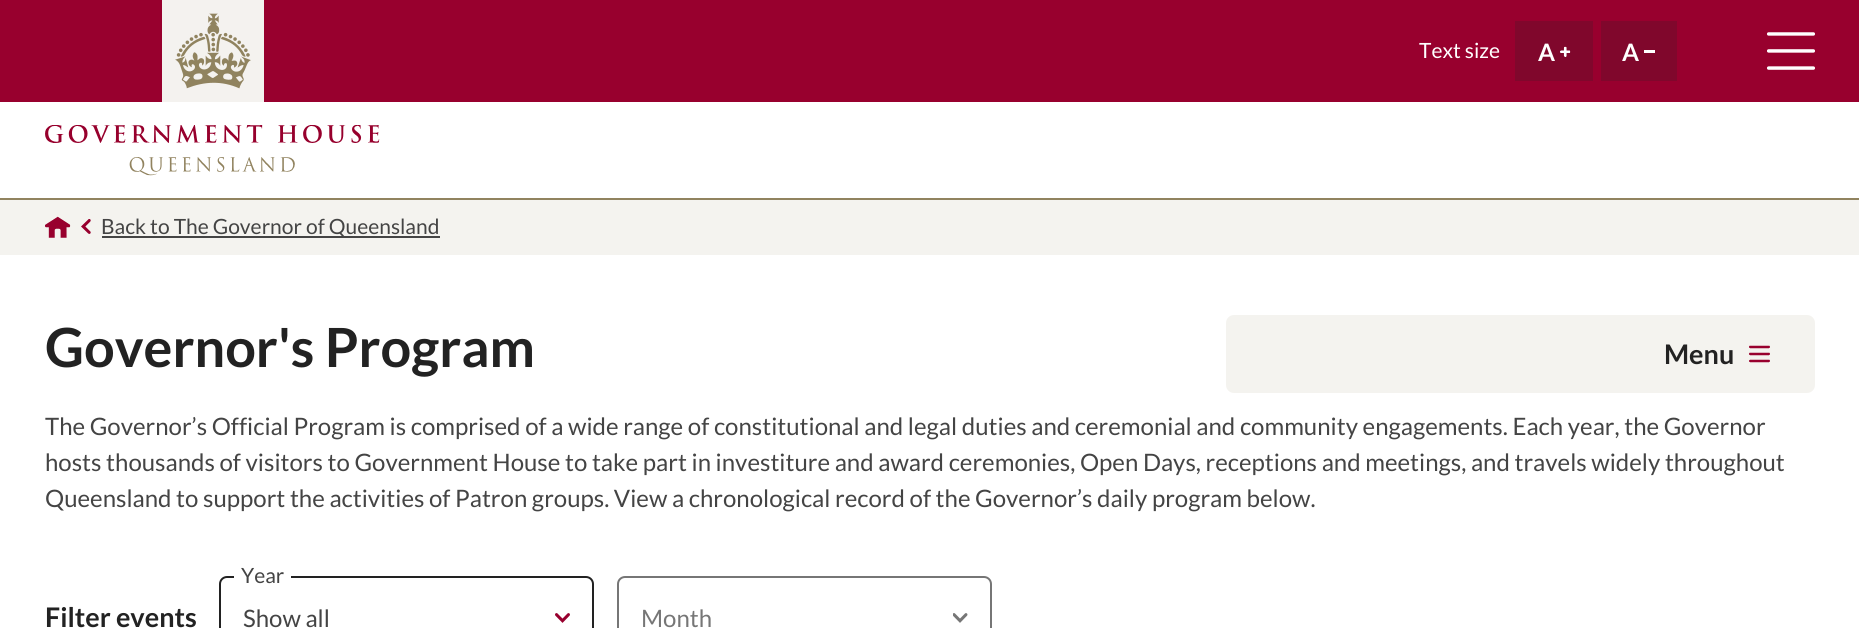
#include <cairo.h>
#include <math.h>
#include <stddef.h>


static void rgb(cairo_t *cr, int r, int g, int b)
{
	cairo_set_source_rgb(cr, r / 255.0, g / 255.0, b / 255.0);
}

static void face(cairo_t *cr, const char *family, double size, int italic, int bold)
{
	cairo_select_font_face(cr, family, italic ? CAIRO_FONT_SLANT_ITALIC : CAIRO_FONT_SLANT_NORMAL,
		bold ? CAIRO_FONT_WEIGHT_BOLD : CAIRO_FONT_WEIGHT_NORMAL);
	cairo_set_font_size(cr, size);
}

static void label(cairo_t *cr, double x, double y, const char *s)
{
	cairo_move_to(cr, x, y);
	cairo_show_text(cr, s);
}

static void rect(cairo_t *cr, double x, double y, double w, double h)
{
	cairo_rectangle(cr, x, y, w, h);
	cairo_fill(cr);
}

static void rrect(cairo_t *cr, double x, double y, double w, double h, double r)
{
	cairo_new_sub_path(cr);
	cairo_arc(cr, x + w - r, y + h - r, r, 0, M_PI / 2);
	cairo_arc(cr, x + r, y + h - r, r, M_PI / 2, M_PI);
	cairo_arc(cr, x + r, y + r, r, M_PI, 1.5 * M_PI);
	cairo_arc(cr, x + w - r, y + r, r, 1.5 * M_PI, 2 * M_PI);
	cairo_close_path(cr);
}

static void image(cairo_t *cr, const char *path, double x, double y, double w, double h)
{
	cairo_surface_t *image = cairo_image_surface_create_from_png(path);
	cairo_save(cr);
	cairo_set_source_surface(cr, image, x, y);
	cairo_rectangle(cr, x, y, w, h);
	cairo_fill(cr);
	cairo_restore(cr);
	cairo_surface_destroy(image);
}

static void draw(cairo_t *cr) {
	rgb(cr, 255, 255, 255);
	cairo_paint(cr);
	rgb(cr, 152, 0, 46);
	rect(cr, 0, 0, 1859, 102);
	image(cr, "image0.png", 162, 0, 102, 102);
	face(cr, "Lato", 21, 0, 0);
	rgb(cr, 255, 255, 255);
	label(cr, 1419, 58, "Text size");
	rgb(cr, 128, 7, 44);
	rect(cr, 1515, 21, 78, 60);
	face(cr, "Lato", 24, 0, 1);
	rgb(cr, 255, 255, 255);
	label(cr, 1538, 61, "A");
	image(cr, "image1.png", 1560, 46, 11, 11);
	rgb(cr, 128, 7, 44);
	rect(cr, 1601, 21, 76, 60);
	rgb(cr, 255, 255, 255);
	label(cr, 1622, 61, "A");
	rect(cr, 1644, 50, 11, 3);
	image(cr, "image2.png", 1767, 32, 48, 38);
	rgb(cr, 145, 131, 95);
	rect(cr, 0, 198, 1859, 2);
	image(cr, "image3.png", 45, 125, 335, 51);
	rgb(cr, 244, 243, 239);
	rect(cr, 0, 200, 1859, 55);
	image(cr, "image4.png", 45, 216, 26, 22);
	image(cr, "image5.png", 81, 219, 10, 15);
	rgb(cr, 68, 68, 68);
	rect(cr, 102, 236, 338, 2);
	face(cr, "Lato", 21, 0, 0);
	label(cr, 101, 234, "Back to The Governor of Queensland");
	face(cr, "Lato", 54, 0, 1);
	rgb(cr, 34, 34, 34);
	label(cr, 45, 367, "Governor's Program");
	rgb(cr, 244, 243, 239);
	rrect(cr, 1226, 315, 589, 78, 8);
	cairo_fill(cr);
	face(cr, "Lato", 27, 0, 1);
	rgb(cr, 34, 34, 34);
	label(cr, 1664, 364, "Menu");
	image(cr, "image6.png", 1749, 345, 21, 18);
	face(cr, "Lato", 24, 0, 0);
	rgb(cr, 68, 68, 68);
	label(cr, 45, 435, "The Governor’s Official Program is comprised of a wide range of constitutional and legal duties and ceremonial and community engagements. Each year, the Governor");
	label(cr, 45, 471, "hosts thousands of visitors to Government House to take part in investiture and award ceremonies, Open Days, receptions and meetings, and travels widely throughout");
	label(cr, 45, 507, "Queensland to support the activities of Patron groups. View a chronological record of the Governor’s daily program below.");
	face(cr, "Lato", 27, 0, 1);
	rgb(cr, 34, 34, 34);
	label(cr, 45, 627, "Filter events");
	image(cr, "image7.png", 555, 613, 15, 10);
	rrect(cr, 220, 577, 373, 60, 7);
	cairo_stroke(cr);
	rgb(cr, 255, 255, 255);
	rrect(cr, 234, 560, 57, 31, 6);
	cairo_fill(cr);
	face(cr, "Lato", 21, 0, 0);
	rgb(cr, 68, 68, 68);
	label(cr, 241, 583, "Year");
	face(cr, "Lato", 24, 0, 0);
	label(cr, 243, 627, "Show all");
	image(cr, "image8.png", 953, 613, 15, 10);
	rrect(cr, 618, 577, 373, 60, 7);
	rgb(cr, 118, 118, 118);
	cairo_stroke(cr);
	label(cr, 641, 627, "Month");
}

int main(void) {
	cairo_surface_t *surface = cairo_image_surface_create(CAIRO_FORMAT_RGB24, 1859, 628);
	cairo_t *cr = cairo_create(surface);
	cairo_font_options_t *options = cairo_font_options_create();
	cairo_font_options_set_hint_metrics(options, CAIRO_HINT_METRICS_OFF);
	cairo_font_options_set_hint_style(options, CAIRO_HINT_STYLE_NONE);
	cairo_set_font_options(cr, options);
	cairo_set_miter_limit(cr, 4);
	draw(cr);
	cairo_surface_write_to_png(surface, "render.png");
	cairo_font_options_destroy(options);
	cairo_destroy(cr);
	cairo_surface_destroy(surface);
	return 0;
}
